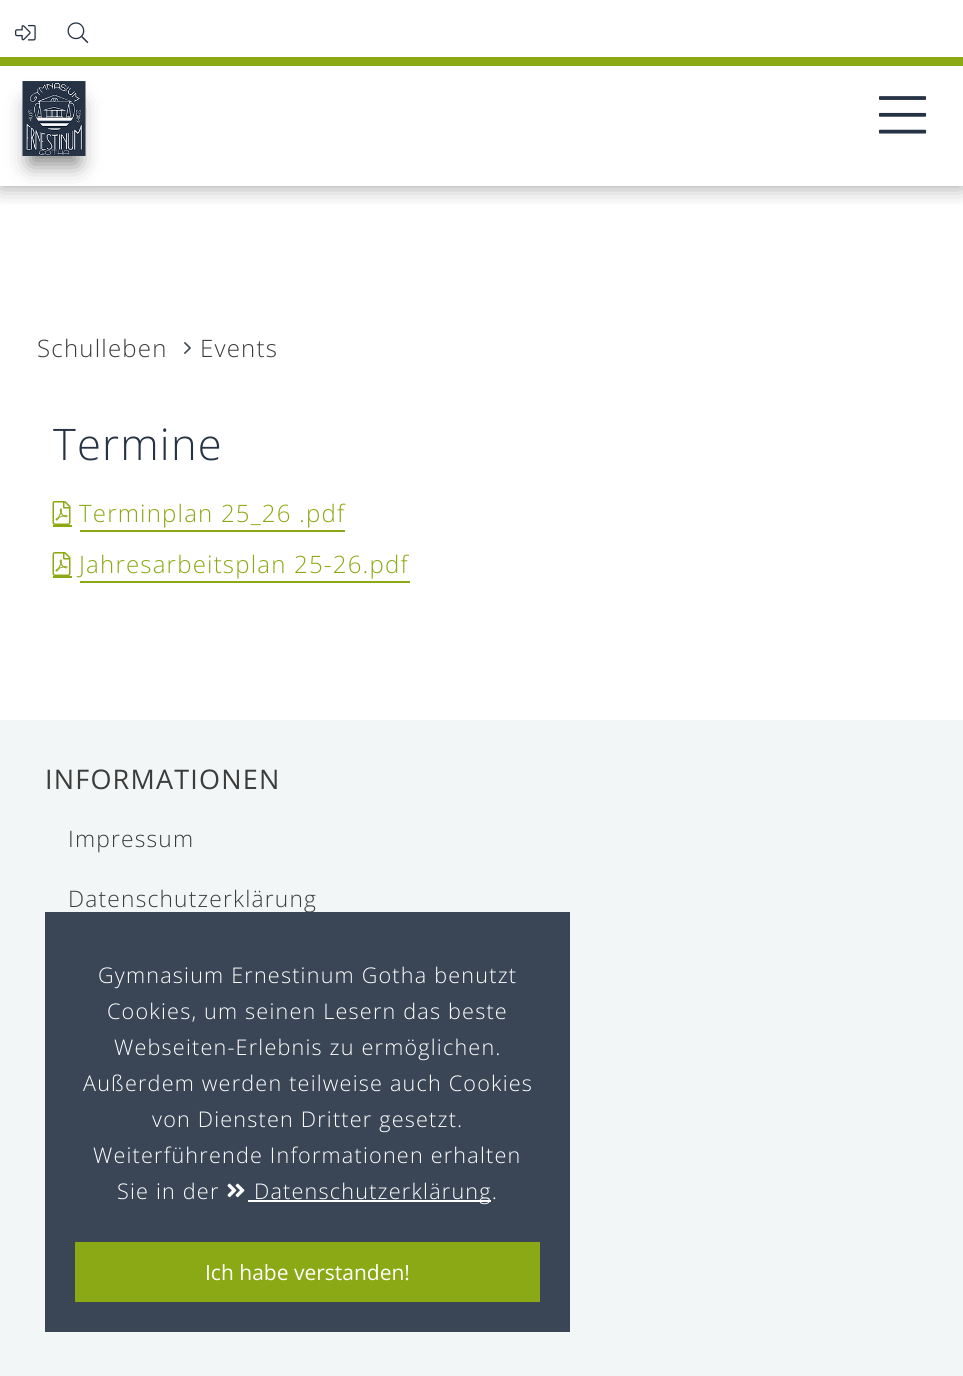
#include <cairo.h>
#include <math.h>
#include <stddef.h>


static void rgb(cairo_t *cr, int r, int g, int b)
{
	cairo_set_source_rgb(cr, r / 255.0, g / 255.0, b / 255.0);
}

static void face(cairo_t *cr, const char *family, double size, int italic, int bold)
{
	cairo_select_font_face(cr, family, italic ? CAIRO_FONT_SLANT_ITALIC : CAIRO_FONT_SLANT_NORMAL,
		bold ? CAIRO_FONT_WEIGHT_BOLD : CAIRO_FONT_WEIGHT_NORMAL);
	cairo_set_font_size(cr, size);
}

static void label(cairo_t *cr, double x, double y, const char *s)
{
	cairo_move_to(cr, x, y);
	cairo_show_text(cr, s);
}

static void tracked(cairo_t *cr, double x, double y, const char *s, double letter, double word)
{
	cairo_move_to(cr, x, y);
	while (*s) {
		char ch[5] = {0};
		int n = 0;
		do ch[n++] = *s++; while ((*s & 0xC0) == 0x80);
		cairo_show_text(cr, ch);
		cairo_rel_move_to(cr, letter + word * (*ch == ' '), 0);
	}
}

static void rect(cairo_t *cr, double x, double y, double w, double h)
{
	cairo_rectangle(cr, x, y, w, h);
	cairo_fill(cr);
}

static void rrect(cairo_t *cr, double x, double y, double w, double h, double r)
{
	cairo_new_sub_path(cr);
	cairo_arc(cr, x + w - r, y + h - r, r, 0, M_PI / 2);
	cairo_arc(cr, x + r, y + h - r, r, M_PI / 2, M_PI);
	cairo_arc(cr, x + r, y + r, r, M_PI, 1.5 * M_PI);
	cairo_arc(cr, x + w - r, y + r, r, 1.5 * M_PI, 2 * M_PI);
	cairo_close_path(cr);
}

static void soft_shadow(cairo_t *cr, double x, double y, double w, double h, double r, double blur, double alpha)
{
	cairo_push_group_with_content(cr, CAIRO_CONTENT_ALPHA);
	cairo_set_operator(cr, CAIRO_OPERATOR_SOURCE);
	for (int i = 15; i >= -15 && fmin(w, h) + blur * i / 3 > 0; i -= 2) {
		double e = blur * i / 6;
		cairo_set_source_rgba(cr, 0, 0, 0, alpha * erfc((i - 1) / 8.5) / 2);
		rrect(cr, x - e, y - e, w + 2 * e, h + 2 * e, fmax(0, fmin(r + e + blur * .6, fmin(w, h) / 2 + e)));
		cairo_fill(cr);
	}
	cairo_pattern_t *soft = cairo_pop_group(cr);
	cairo_mask(cr, soft);
	cairo_pattern_destroy(soft);
}

static void image(cairo_t *cr, const char *path, double x, double y, double w, double h)
{
	cairo_surface_t *image = cairo_image_surface_create_from_png(path);
	cairo_save(cr);
	cairo_set_source_surface(cr, image, x, y);
	cairo_rectangle(cr, x, y, w, h);
	cairo_fill(cr);
	cairo_restore(cr);
	cairo_surface_destroy(image);
}

static void draw(cairo_t *cr) {
	rgb(cr, 255, 255, 255);
	cairo_paint(cr);
	cairo_save(cr);
	cairo_rectangle(cr, 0, 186, 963, 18);
	cairo_clip(cr);
	rgb(cr, 0, 0, 0);
	soft_shadow(cr, 0, 57, 963, 129, 0, 11, 0.4);
	cairo_restore(cr);
	rgb(cr, 139, 169, 21);
	rect(cr, 0, 57, 963, 9);
	rgb(cr, 255, 255, 255);
	rect(cr, 0, 35, 963, 22);
	image(cr, "image0.png", 15, 24, 21, 17);
	image(cr, "image1.png", 67, 22, 22, 21);
	rgb(cr, 0, 0, 0);
	soft_shadow(cr, 30, 104, 48, 60, 0, 11, 0.5);
	image(cr, "image2.png", 22, 81, 64, 75);
	image(cr, "image3.png", 879, 96, 48, 38);
	face(cr, "Open Sans Light", 24, 0, 0);
	rgb(cr, 60, 60, 59);
	tracked(cr, 37, 357, "Schulleben", 1.2, 0);
	image(cr, "image4.png", 184, 342, 7, 12);
	tracked(cr, 200, 357, "Events", 1.2, 0);
	face(cr, "Open Sans Light", 43.5, 0, 0);
	rgb(cr, 38, 51, 69);
	tracked(cr, 53, 460, "Termine", 1.2, 0);
	image(cr, "image5.png", 52, 501, 19, 24);
	face(cr, "Open Sans Light", 24, 0, 0);
	rgb(cr, 139, 169, 21);
	tracked(cr, 79, 522, "Terminplan 25_26 .pdf", 1.2, 0);
	rect(cr, 53, 525, 19, 2);
	rect(cr, 80, 530, 265, 2);
	image(cr, "image5.png", 52, 552, 19, 24);
	tracked(cr, 79, 573, "Jahresarbeitsplan 25-26.pdf", 1.2, 0);
	rect(cr, 53, 576, 19, 2);
	rect(cr, 80, 581, 330, 2);
	rgb(cr, 242, 246, 247);
	rect(cr, 0, 720, 963, 656);
	face(cr, "Open Sans", 27, 0, 0);
	rgb(cr, 60, 60, 59);
	tracked(cr, 45, 789, "INFORMATIONEN", 1.2, 0);
	face(cr, "Open Sans Light", 22.75, 0, 0);
	tracked(cr, 68, 847, "Impressum", 1.2, 0);
	tracked(cr, 68, 907, "Datenschutzerklärung", 1.2, 0);
	cairo_set_source_rgba(cr, 0.149, 0.2, 0.271, 0.9);
	rect(cr, 45, 912, 525, 420);
	face(cr, "Open Sans Light", 21.6, 0, 0);
	rgb(cr, 255, 255, 255);
	tracked(cr, 98, 983, "Gymnasium Ernestinum Gotha benutzt", 1.2, 0);
	tracked(cr, 107, 1019, "Cookies, um seinen Lesern das beste", 1.2, 0);
	tracked(cr, 114, 1055, "Webseiten-Erlebnis zu ermöglichen.", 1.2, 0);
	tracked(cr, 83, 1091, "Außerdem werden teilweise auch Cookies", 1.2, 0);
	tracked(cr, 152, 1127, "von Diensten Dritter gesetzt.", 1.2, 0);
	tracked(cr, 93, 1163, "Weiterführende Informationen erhalten", 1.2, 0);
	tracked(cr, 117, 1199, "Sie in der", 1.2, 0);
	image(cr, "image6.png", 227, 1183, 18, 15);
	rect(cr, 248, 1200, 243, 2);
	tracked(cr, 254, 1199, "Datenschutzerklärung.", 1.2, 0);
	rgb(cr, 139, 169, 21);
	rect(cr, 75, 1242, 465, 60);
	face(cr, "Open Sans", 21, 0, 0);
	rgb(cr, 255, 255, 255);
	label(cr, 205, 1280, "Ich habe verstanden!");
}

int main(void) {
	cairo_surface_t *surface = cairo_image_surface_create(CAIRO_FORMAT_RGB24, 963, 1376);
	cairo_t *cr = cairo_create(surface);
	cairo_font_options_t *options = cairo_font_options_create();
	cairo_font_options_set_hint_metrics(options, CAIRO_HINT_METRICS_OFF);
	cairo_font_options_set_hint_style(options, CAIRO_HINT_STYLE_NONE);
	cairo_set_font_options(cr, options);
	cairo_set_miter_limit(cr, 4);
	draw(cr);
	cairo_surface_write_to_png(surface, "render.png");
	cairo_font_options_destroy(options);
	cairo_destroy(cr);
	cairo_surface_destroy(surface);
	return 0;
}
